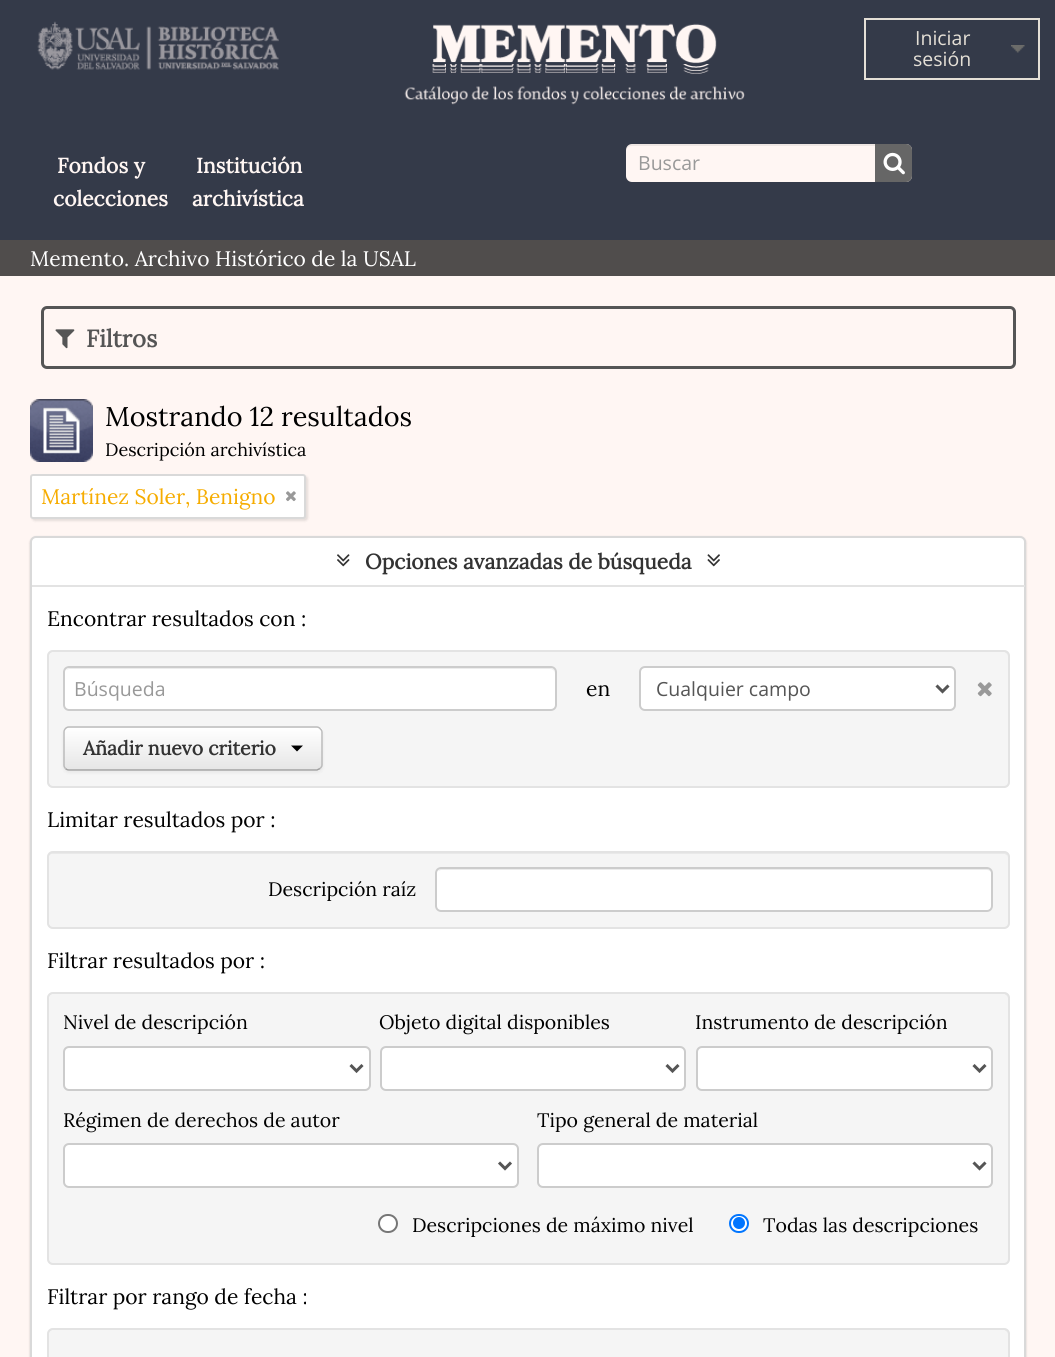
#include <cairo.h>
#include <math.h>
#include <stddef.h>


static void rgb(cairo_t *cr, int r, int g, int b)
{
	cairo_set_source_rgb(cr, r / 255.0, g / 255.0, b / 255.0);
}

static void face(cairo_t *cr, const char *family, double size, int italic, int bold)
{
	cairo_select_font_face(cr, family, italic ? CAIRO_FONT_SLANT_ITALIC : CAIRO_FONT_SLANT_NORMAL,
		bold ? CAIRO_FONT_WEIGHT_BOLD : CAIRO_FONT_WEIGHT_NORMAL);
	cairo_set_font_size(cr, size);
}

static void label(cairo_t *cr, double x, double y, const char *s)
{
	cairo_move_to(cr, x, y);
	cairo_show_text(cr, s);
}

static void rect(cairo_t *cr, double x, double y, double w, double h)
{
	cairo_rectangle(cr, x, y, w, h);
	cairo_fill(cr);
}

static void rrect(cairo_t *cr, double x, double y, double w, double h, double r)
{
	cairo_new_sub_path(cr);
	cairo_arc(cr, x + w - r, y + h - r, r, 0, M_PI / 2);
	cairo_arc(cr, x + r, y + h - r, r, M_PI / 2, M_PI);
	cairo_arc(cr, x + r, y + r, r, M_PI, 1.5 * M_PI);
	cairo_arc(cr, x + w - r, y + r, r, 1.5 * M_PI, 2 * M_PI);
	cairo_close_path(cr);
}

static void soft_shadow(cairo_t *cr, double x, double y, double w, double h, double r, double blur, double alpha)
{
	cairo_push_group_with_content(cr, CAIRO_CONTENT_ALPHA);
	cairo_set_operator(cr, CAIRO_OPERATOR_SOURCE);
	for (int i = 15; i >= -15 && fmin(w, h) + blur * i / 3 > 0; i -= 2) {
		double e = blur * i / 6;
		cairo_set_source_rgba(cr, 0, 0, 0, alpha * erfc((i - 1) / 8.5) / 2);
		rrect(cr, x - e, y - e, w + 2 * e, h + 2 * e, fmax(0, fmin(r + e + blur * .6, fmin(w, h) / 2 + e)));
		cairo_fill(cr);
	}
	cairo_pattern_t *soft = cairo_pop_group(cr);
	cairo_mask(cr, soft);
	cairo_pattern_destroy(soft);
}

static void image(cairo_t *cr, const char *path, double x, double y, double w, double h)
{
	cairo_surface_t *image = cairo_image_surface_create_from_png(path);
	cairo_save(cr);
	cairo_set_source_surface(cr, image, x, y);
	cairo_rectangle(cr, x, y, w, h);
	cairo_fill(cr);
	cairo_restore(cr);
	cairo_surface_destroy(image);
}

static void draw(cairo_t *cr) {
	cairo_pattern_t *gradient;
	rgb(cr, 255, 246, 243);
	cairo_paint(cr);
	rgb(cr, 52, 58, 73);
	rect(cr, 0, 0, 1055, 240);
	image(cr, "image0.png", 37, 21, 242, 49);
	image(cr, "image1.png", 404, 23, 341, 82);
	image(cr, "image2.png", 1011, 45, 14, 8);
	cairo_rectangle(cr, 865, 19, 174, 60);
	rgb(cr, 228, 223, 214);
	cairo_stroke(cr);
	face(cr, "Open Sans", 19.5, 0, 0);
	label(cr, 915, 45, "Iniciar");
	label(cr, 913, 66, "sesión");
	face(cr, "Lora", 21, 0, 1);
	rgb(cr, 255, 246, 243);
	label(cr, 57, 173, "Fondos y");
	label(cr, 53, 206, "colecciones");
	label(cr, 196, 173, "Institución");
	label(cr, 192, 206, "archivística");
	rrect(cr, 626, 144, 286, 38, 6);
	cairo_fill(cr);
	cairo_set_source_rgba(cr, 0, 0, 0, 0.07);
	cairo_new_path(cr);
	cairo_move_to(cr, 632, 146);
	cairo_line_to(cr, 906, 146);
	cairo_curve_to(cr, 909, 146, 912, 148, 912, 152);
	cairo_line_to(cr, 912, 150);
	cairo_curve_to(cr, 912, 147, 909, 144, 906, 144);
	cairo_line_to(cr, 632, 144);
	cairo_curve_to(cr, 629, 144, 626, 147, 626, 150);
	cairo_line_to(cr, 626, 152);
	cairo_curve_to(cr, 626, 148, 628, 146, 632, 146);
	cairo_close_path(cr);
	cairo_fill(cr);
	face(cr, "Open Sans", 19.5, 0, 0);
	rgb(cr, 153, 153, 153);
	label(cr, 638, 170, "Buscar");
	rgb(cr, 102, 102, 102);
	cairo_new_path(cr);
	cairo_move_to(cr, 875, 144);
	cairo_line_to(cr, 906, 144);
	cairo_curve_to(cr, 909.5, 144, 912, 146.5, 912, 150);
	cairo_line_to(cr, 912, 176);
	cairo_curve_to(cr, 912, 179.5, 909.5, 182, 906, 182);
	cairo_line_to(cr, 875, 182);
	cairo_close_path(cr);
	cairo_fill(cr);
	image(cr, "image3.png", 883, 152, 22, 23);
	rgb(cr, 80, 77, 76);
	rect(cr, 0, 240, 1055, 36);
	face(cr, "Lora", 21, 0, 0);
	rgb(cr, 255, 255, 255);
	label(cr, 30, 266, "Memento. Archivo Histórico de la USAL");
	rrect(cr, 42.5, 307.5, 972, 60, 4.5);
	rgb(cr, 85, 85, 85);
	cairo_set_line_width(cr, 3);
	cairo_stroke(cr);
	image(cr, "image4.png", 55, 329, 20, 20);
	face(cr, "Lora", 24, 0, 1);
	label(cr, 86, 347, "Filtros");
	image(cr, "image5.png", 30, 399, 63, 63);
	face(cr, "Lora", 27, 0, 0);
	rgb(cr, 0, 0, 0);
	label(cr, 105, 426, "Mostrando 12 resultados");
	face(cr, "Lora", 18, 0, 0);
	label(cr, 105, 456, "Descripción archivística");
	rgb(cr, 0, 0, 0);
	soft_shadow(cr, 32, 476, 276, 45, 3, 1, 0.1);
	rgb(cr, 255, 255, 255);
	rrect(cr, 31, 475, 274, 43, 2);
	cairo_fill_preserve(cr);
	rgb(cr, 217, 217, 217);
	cairo_set_line_width(cr, 2);
	cairo_stroke(cr);
	face(cr, "Lora", 21, 0, 0);
	rgb(cr, 246, 172, 0);
	label(cr, 41, 504, "Martínez Soler, Benigno");
	image(cr, "image6.png", 286, 491, 10, 11);
	rgb(cr, 0, 0, 0);
	soft_shadow(cr, 30, 537, 996, 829, 6, 1, 0.2);
	rgb(cr, 255, 255, 255);
	rrect(cr, 31, 537, 994, 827, 5);
	cairo_fill_preserve(cr);
	rgb(cr, 217, 217, 217);
	cairo_stroke(cr);
	image(cr, "image7.png", 337, 554, 13, 13);
	face(cr, "Lora", 21, 0, 1);
	rgb(cr, 51, 51, 51);
	label(cr, 365, 569, "Opciones avanzadas de búsqueda");
	image(cr, "image8.png", 707, 554, 13, 13);
	rgb(cr, 227, 227, 227);
	rect(cr, 32, 585, 993, 2);
	face(cr, "Lora", 21, 0, 0);
	rgb(cr, 0, 0, 0);
	label(cr, 47, 626, "Encontrar resultados con :");
	rgb(cr, 245, 245, 245);
	rrect(cr, 47, 650, 963, 138, 6);
	cairo_fill(cr);
	rgb(cr, 233, 233, 233);
	cairo_new_path(cr);
	cairo_move_to(cr, 52, 652);
	cairo_line_to(cr, 1004, 652);
	cairo_curve_to(cr, 1006, 652, 1008, 655, 1008, 657);
	cairo_curve_to(cr, 1008, 654, 1006, 651, 1003, 651);
	cairo_line_to(cr, 53, 651);
	cairo_curve_to(cr, 50, 651, 48, 654, 48, 657);
	cairo_curve_to(cr, 48, 655, 50, 652, 52, 652);
	cairo_close_path(cr);
	cairo_fill(cr);
	rrect(cr, 48, 651, 961, 136, 5);
	rgb(cr, 227, 227, 227);
	cairo_stroke(cr);
	rgb(cr, 255, 255, 255);
	rrect(cr, 63, 666, 494, 45, 6);
	cairo_fill(cr);
	rgb(cr, 236, 236, 236);
	cairo_new_path(cr);
	cairo_move_to(cr, 69, 669);
	cairo_line_to(cr, 550, 669);
	cairo_curve_to(cr, 553, 669, 555, 671, 555, 674);
	cairo_line_to(cr, 555, 673);
	cairo_curve_to(cr, 555, 670, 553, 668, 550, 668);
	cairo_line_to(cr, 70, 668);
	cairo_curve_to(cr, 68, 668, 67, 669, 66, 670);
	cairo_close_path(cr);
	cairo_fill(cr);
	rrect(cr, 64, 667, 492, 43, 5);
	rgb(cr, 204, 204, 204);
	cairo_stroke(cr);
	face(cr, "Open Sans", 19.5, 0, 0);
	rgb(cr, 153, 153, 153);
	label(cr, 74, 696, "Búsqueda");
	face(cr, "Lora", 21, 0, 0);
	rgb(cr, 0, 0, 0);
	label(cr, 586, 696, "en");
	rgb(cr, 255, 255, 255);
	rrect(cr, 640, 667, 315, 43, 5);
	cairo_fill_preserve(cr);
	rgb(cr, 204, 204, 204);
	cairo_stroke(cr);
	cairo_new_path(cr);
	cairo_move_to(cr, 936.5, 685.5);
	cairo_line_to(cr, 942.5, 691.5);
	cairo_line_to(cr, 948.5, 685.5);
	rgb(cr, 85, 85, 85);
	cairo_set_line_width(cr, 3);
	cairo_stroke(cr);
	face(cr, "Open Sans", 19.5, 0, 0);
	label(cr, 656, 696, "Cualquier campo");
	image(cr, "image9.png", 977, 682, 15, 15);
	rgb(cr, 0, 0, 0);
	soft_shadow(cr, 63, 728, 260, 45, 6, 1.5, 0.05);
	rgb(cr, 245, 245, 245);
	rrect(cr, 63, 726, 260, 45, 6);
	cairo_fill(cr);
	cairo_save(cr);
	rrect(cr, 63, 726, 260, 45, 6);
	cairo_clip(cr);
	gradient = cairo_pattern_create_linear(193, 728, 193, 770);
	cairo_pattern_add_color_stop_rgba(gradient, 0, 1, 1, 1, 1);
	cairo_pattern_add_color_stop_rgba(gradient, 1, 0.902, 0.902, 0.902, 1);
	cairo_set_source(cr, gradient);
	cairo_pattern_destroy(gradient);
	rect(cr, 63, 728, 260, 42);
	cairo_restore(cr);
	cairo_new_path(cr);
	cairo_move_to(cr, 320, 768.5);
	cairo_line_to(cr, 317, 770);
	cairo_line_to(cr, 69, 770);
	cairo_curve_to(cr, 67.5, 770, 66.5, 769.5, 65.5, 768.5);
	rgb(cr, 162, 162, 162);
	cairo_set_line_width(cr, 1.5);
	cairo_stroke(cr);
	cairo_new_path(cr);
	cairo_move_to(cr, 65.5, 768.5);
	cairo_curve_to(cr, 64.5, 767.5, 64, 766.5, 64, 765);
	cairo_line_to(cr, 64, 732);
	cairo_curve_to(cr, 64, 730.5, 64.5, 729.5, 65.5, 728.5);
	cairo_curve_to(cr, 66.5, 727.5, 67.5, 727, 69, 727);
	cairo_line_to(cr, 316.5, 727);
	cairo_curve_to(cr, 318, 727, 319, 727.5, 320, 728.5);
	cairo_curve_to(cr, 321, 729.5, 322, 730.5, 322, 732);
	cairo_line_to(cr, 322, 765);
	cairo_curve_to(cr, 322, 766.5, 321, 767.5, 320, 768.5);
	rgb(cr, 187, 187, 187);
	cairo_stroke(cr);
	face(cr, "Lora", 19.5, 0, 1);
	rgb(cr, 51, 51, 51);
	label(cr, 83, 755, "Añadir nuevo criterio");
	rgb(cr, 0, 0, 0);
	cairo_new_path(cr);
	cairo_move_to(cr, 291, 745.5);
	cairo_line_to(cr, 303, 745.5);
	cairo_line_to(cr, 297, 751.5);
	cairo_close_path(cr);
	cairo_fill(cr);
	face(cr, "Lora", 21, 0, 0);
	label(cr, 47, 827, "Limitar resultados por :");
	rgb(cr, 245, 245, 245);
	rrect(cr, 47, 851, 963, 78, 6);
	cairo_fill(cr);
	rgb(cr, 233, 233, 233);
	cairo_new_path(cr);
	cairo_move_to(cr, 52, 854);
	cairo_line_to(cr, 1004, 854);
	cairo_curve_to(cr, 1006, 854, 1008, 856, 1008, 858);
	cairo_curve_to(cr, 1008, 855, 1006, 852, 1003, 852);
	cairo_line_to(cr, 53, 852);
	cairo_curve_to(cr, 50, 852, 48, 855, 48, 858);
	cairo_curve_to(cr, 48, 856, 50, 854, 52, 854);
	cairo_close_path(cr);
	cairo_fill(cr);
	rrect(cr, 48, 852, 961, 76, 5);
	rgb(cr, 227, 227, 227);
	cairo_set_line_width(cr, 2);
	cairo_stroke(cr);
	face(cr, "Lora", 19.5, 0, 0);
	rgb(cr, 0, 0, 0);
	label(cr, 268, 896, "Descripción raíz");
	rgb(cr, 255, 255, 255);
	rrect(cr, 435, 867, 558, 45, 6);
	cairo_fill(cr);
	rgb(cr, 236, 236, 236);
	cairo_new_path(cr);
	cairo_move_to(cr, 441, 870);
	cairo_line_to(cr, 987, 870);
	cairo_curve_to(cr, 989, 870, 992, 872, 992, 874);
	cairo_curve_to(cr, 992, 872, 990, 870, 988, 869);
	cairo_line_to(cr, 440, 869);
	cairo_line_to(cr, 438, 871);
	cairo_close_path(cr);
	cairo_fill(cr);
	rrect(cr, 436, 868, 556, 43, 5);
	rgb(cr, 204, 204, 204);
	cairo_stroke(cr);
	face(cr, "Lora", 21, 0, 0);
	rgb(cr, 0, 0, 0);
	label(cr, 47, 968, "Filtrar resultados por :");
	rgb(cr, 245, 245, 245);
	rrect(cr, 47, 992, 963, 273, 6);
	cairo_fill(cr);
	rgb(cr, 233, 233, 233);
	cairo_new_path(cr);
	cairo_move_to(cr, 52, 994);
	cairo_line_to(cr, 1004, 994);
	cairo_curve_to(cr, 1006, 994, 1008, 997, 1008, 999);
	cairo_curve_to(cr, 1008, 996, 1006, 993, 1003, 993);
	cairo_line_to(cr, 53, 993);
	cairo_curve_to(cr, 50, 993, 48, 996, 48, 999);
	cairo_curve_to(cr, 48, 997, 50, 994, 52, 994);
	cairo_close_path(cr);
	cairo_fill(cr);
	rrect(cr, 48, 993, 961, 271, 5);
	rgb(cr, 227, 227, 227);
	cairo_stroke(cr);
	face(cr, "Lora", 19.5, 0, 0);
	rgb(cr, 0, 0, 0);
	label(cr, 63, 1029, "Nivel de descripción");
	rgb(cr, 255, 255, 255);
	rrect(cr, 64, 1047, 306, 43, 5);
	cairo_fill_preserve(cr);
	rgb(cr, 204, 204, 204);
	cairo_stroke(cr);
	cairo_new_path(cr);
	cairo_move_to(cr, 350.5, 1065);
	cairo_line_to(cr, 356.5, 1071);
	cairo_line_to(cr, 362.5, 1065);
	rgb(cr, 85, 85, 85);
	cairo_set_line_width(cr, 3);
	cairo_stroke(cr);
	rgb(cr, 0, 0, 0);
	label(cr, 379, 1029, "Objeto digital disponibles");
	rgb(cr, 255, 255, 255);
	rrect(cr, 381, 1047, 304, 43, 5);
	cairo_fill_preserve(cr);
	rgb(cr, 204, 204, 204);
	cairo_set_line_width(cr, 2);
	cairo_stroke(cr);
	cairo_new_path(cr);
	cairo_move_to(cr, 666.5, 1065);
	cairo_line_to(cr, 672.5, 1071);
	cairo_line_to(cr, 678.5, 1065);
	rgb(cr, 85, 85, 85);
	cairo_set_line_width(cr, 3);
	cairo_stroke(cr);
	rgb(cr, 0, 0, 0);
	label(cr, 695, 1029, "Instrumento de descripción");
	rgb(cr, 255, 255, 255);
	rrect(cr, 697, 1047, 295, 43, 5);
	cairo_fill_preserve(cr);
	rgb(cr, 204, 204, 204);
	cairo_set_line_width(cr, 2);
	cairo_stroke(cr);
	cairo_new_path(cr);
	cairo_move_to(cr, 973.5, 1065);
	cairo_line_to(cr, 979.5, 1071);
	cairo_line_to(cr, 985.5, 1065);
	rgb(cr, 85, 85, 85);
	cairo_set_line_width(cr, 3);
	cairo_stroke(cr);
	rgb(cr, 0, 0, 0);
	label(cr, 63, 1127, "Régimen de derechos de autor");
	rgb(cr, 255, 255, 255);
	rrect(cr, 64, 1144, 454, 43, 5);
	cairo_fill_preserve(cr);
	rgb(cr, 204, 204, 204);
	cairo_set_line_width(cr, 2);
	cairo_stroke(cr);
	cairo_new_path(cr);
	cairo_move_to(cr, 499, 1162.5);
	cairo_line_to(cr, 505, 1168.5);
	cairo_line_to(cr, 511, 1162.5);
	rgb(cr, 85, 85, 85);
	cairo_set_line_width(cr, 3);
	cairo_stroke(cr);
	rgb(cr, 0, 0, 0);
	label(cr, 537, 1127, "Tipo general de material");
	rgb(cr, 255, 255, 255);
	rrect(cr, 538, 1144, 454, 43, 5);
	cairo_fill_preserve(cr);
	rgb(cr, 204, 204, 204);
	cairo_set_line_width(cr, 2);
	cairo_stroke(cr);
	cairo_new_path(cr);
	cairo_move_to(cr, 973.5, 1162.5);
	cairo_line_to(cr, 979.5, 1168.5);
	cairo_line_to(cr, 985.5, 1162.5);
	rgb(cr, 85, 85, 85);
	cairo_set_line_width(cr, 3);
	cairo_stroke(cr);
	rgb(cr, 255, 255, 255);
	rrect(cr, 379, 1215, 18, 17, 8.5);
	cairo_fill_preserve(cr);
	rgb(cr, 118, 118, 118);
	cairo_set_line_width(cr, 2);
	cairo_stroke(cr);
	rgb(cr, 0, 0, 0);
	label(cr, 412, 1232, "Descripciones de máximo nivel");
	rgb(cr, 255, 255, 255);
	rrect(cr, 730, 1215, 18, 17, 8.5);
	cairo_fill_preserve(cr);
	rgb(cr, 0, 117, 255);
	cairo_stroke(cr);
	cairo_arc(cr, 739, 1223, 6, 0, 2 * M_PI);
	cairo_fill(cr);
	rgb(cr, 0, 0, 0);
	label(cr, 763, 1232, "Todas las descripciones");
	face(cr, "Lora", 21, 0, 0);
	label(cr, 47, 1304, "Filtrar por rango de fecha :");
	rgb(cr, 245, 245, 245);
	rrect(cr, 47, 1328, 963, 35, 6);
	cairo_fill(cr);
	rgb(cr, 233, 233, 233);
	cairo_new_path(cr);
	cairo_move_to(cr, 52, 1330);
	cairo_line_to(cr, 1004, 1330);
	cairo_curve_to(cr, 1006, 1330, 1008, 1333, 1008, 1335);
	cairo_curve_to(cr, 1008, 1332, 1006, 1329, 1003, 1329);
	cairo_line_to(cr, 53, 1329);
	cairo_curve_to(cr, 50, 1329, 48, 1332, 48, 1335);
	cairo_curve_to(cr, 48, 1333, 50, 1330, 52, 1330);
	cairo_close_path(cr);
	cairo_fill(cr);
	rrect(cr, 48, 1329, 961, 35, 5);
	rgb(cr, 227, 227, 227);
	cairo_stroke(cr);
}

int main(void) {
	cairo_surface_t *surface = cairo_image_surface_create(CAIRO_FORMAT_RGB24, 1055, 1357);
	cairo_t *cr = cairo_create(surface);
	cairo_font_options_t *options = cairo_font_options_create();
	cairo_font_options_set_hint_metrics(options, CAIRO_HINT_METRICS_OFF);
	cairo_font_options_set_hint_style(options, CAIRO_HINT_STYLE_NONE);
	cairo_set_font_options(cr, options);
	cairo_set_miter_limit(cr, 4);
	draw(cr);
	cairo_surface_write_to_png(surface, "render.png");
	cairo_font_options_destroy(options);
	cairo_destroy(cr);
	cairo_surface_destroy(surface);
	return 0;
}
